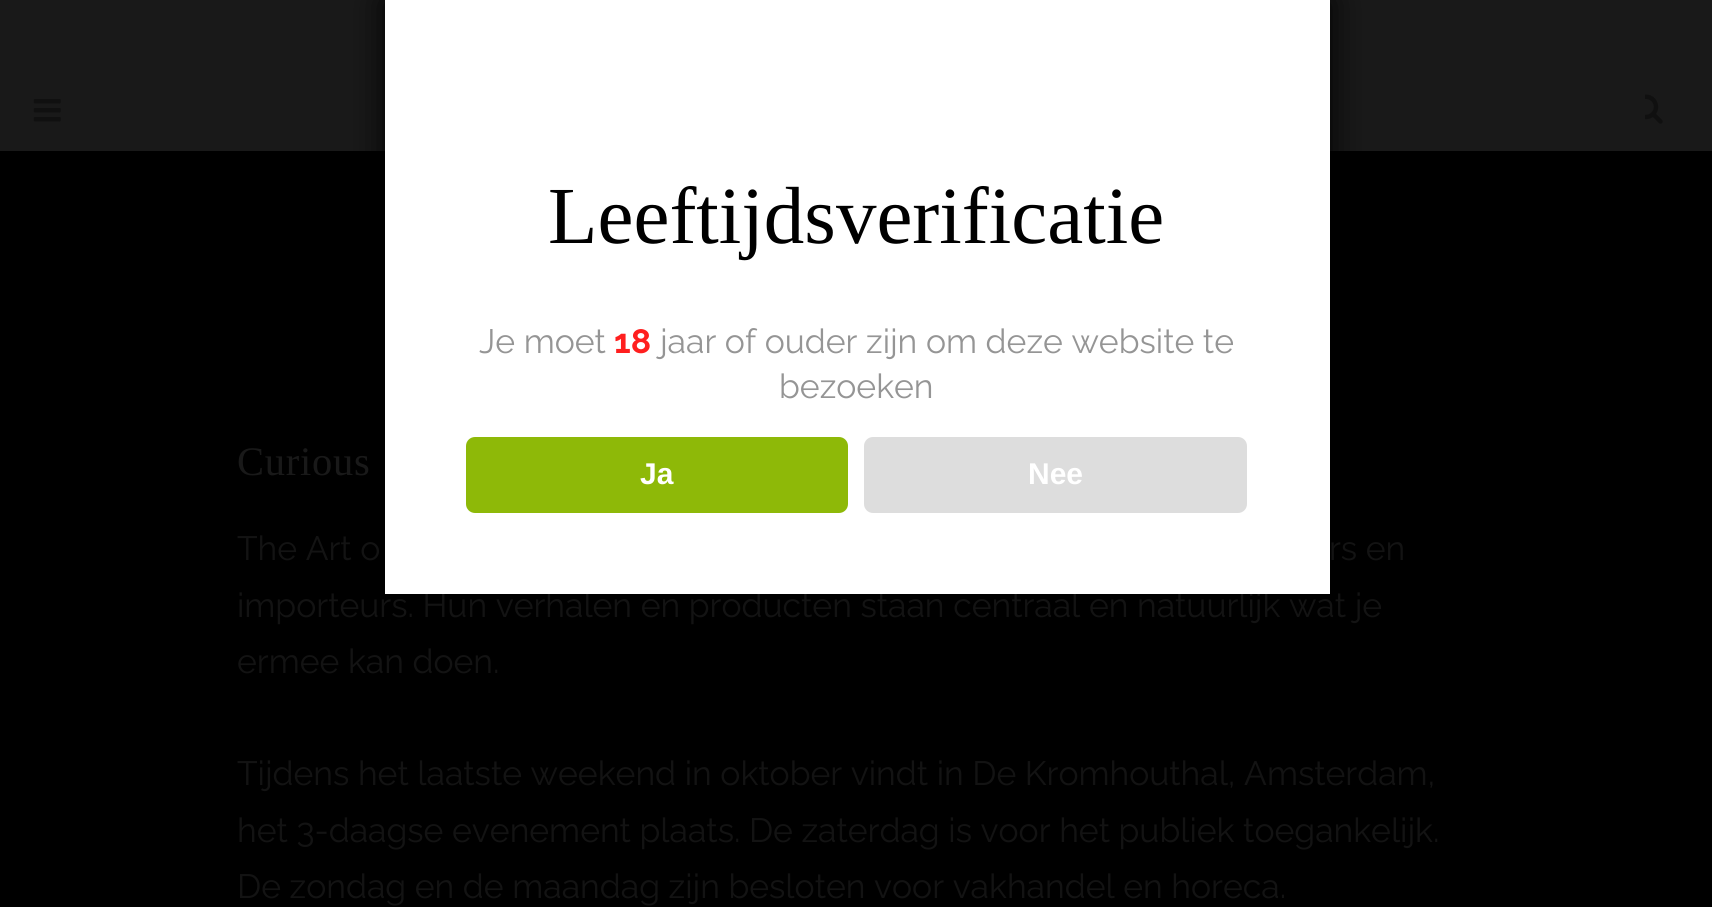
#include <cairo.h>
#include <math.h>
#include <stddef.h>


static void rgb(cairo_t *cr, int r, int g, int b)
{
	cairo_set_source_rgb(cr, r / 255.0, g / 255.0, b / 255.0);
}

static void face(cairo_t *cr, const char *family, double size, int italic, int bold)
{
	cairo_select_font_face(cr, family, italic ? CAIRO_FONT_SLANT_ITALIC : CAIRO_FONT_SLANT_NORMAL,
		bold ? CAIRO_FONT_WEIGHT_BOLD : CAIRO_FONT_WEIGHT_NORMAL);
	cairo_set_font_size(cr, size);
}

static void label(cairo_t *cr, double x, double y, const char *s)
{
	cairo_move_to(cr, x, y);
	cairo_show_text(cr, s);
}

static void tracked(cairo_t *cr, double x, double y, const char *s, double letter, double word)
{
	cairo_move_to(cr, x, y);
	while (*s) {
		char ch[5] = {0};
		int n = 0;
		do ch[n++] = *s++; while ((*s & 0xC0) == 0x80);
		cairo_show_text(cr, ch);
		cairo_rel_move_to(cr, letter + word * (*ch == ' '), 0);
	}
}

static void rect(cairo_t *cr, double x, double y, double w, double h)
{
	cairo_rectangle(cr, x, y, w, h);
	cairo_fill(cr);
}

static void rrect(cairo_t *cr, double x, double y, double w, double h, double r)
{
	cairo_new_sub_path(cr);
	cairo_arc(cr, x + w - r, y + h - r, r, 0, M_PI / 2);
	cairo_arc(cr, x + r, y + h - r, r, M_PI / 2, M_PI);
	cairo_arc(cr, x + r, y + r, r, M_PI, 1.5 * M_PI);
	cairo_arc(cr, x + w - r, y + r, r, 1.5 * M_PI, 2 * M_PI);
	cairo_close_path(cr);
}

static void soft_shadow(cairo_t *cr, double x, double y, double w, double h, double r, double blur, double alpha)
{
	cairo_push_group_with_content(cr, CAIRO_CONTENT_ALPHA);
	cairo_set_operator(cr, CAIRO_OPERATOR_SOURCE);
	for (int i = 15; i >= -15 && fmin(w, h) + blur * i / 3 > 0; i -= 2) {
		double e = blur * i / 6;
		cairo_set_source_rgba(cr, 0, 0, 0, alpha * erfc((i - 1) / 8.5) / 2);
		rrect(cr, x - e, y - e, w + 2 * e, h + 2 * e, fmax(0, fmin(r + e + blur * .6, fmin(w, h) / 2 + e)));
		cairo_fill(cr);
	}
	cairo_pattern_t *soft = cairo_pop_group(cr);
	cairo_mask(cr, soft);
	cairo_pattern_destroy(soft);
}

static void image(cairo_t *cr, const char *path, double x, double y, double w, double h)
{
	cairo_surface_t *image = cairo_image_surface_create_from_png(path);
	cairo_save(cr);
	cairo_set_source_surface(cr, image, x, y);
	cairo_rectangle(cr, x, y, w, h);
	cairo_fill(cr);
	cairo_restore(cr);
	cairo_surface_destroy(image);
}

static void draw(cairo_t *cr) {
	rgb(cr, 25, 25, 25);
	cairo_paint(cr);
	rgb(cr, 0, 0, 0);
	rect(cr, 0, 151, 1712, 756);
	rgb(cr, 0, 0, 0);
	soft_shadow(cr, 385, 0, 945, 594, 0, 17, 1);
	face(cr, "Raleway", 33.75, 0, 0);
	rgb(cr, 19, 19, 19);
	label(cr, 237, 617, "importeurs. Hun verhalen en producten staan centraal en natuurlijk wat je");
	rgb(cr, 255, 255, 255);
	rect(cr, 385, 0, 945, 594);
	face(cr, "Liberation Serif", 81, 0, 0);
	rgb(cr, 0, 0, 0);
	label(cr, 548, 243, "Leeftijdsverificatie");
	face(cr, "Raleway", 33.75, 0, 0);
	rgb(cr, 149, 149, 149);
	label(cr, 479, 353, "Je moet");
	face(cr, "Raleway", 33.75, 0, 1);
	rgb(cr, 255, 31, 31);
	label(cr, 614, 353, "18");
	face(cr, "Raleway", 33.75, 0, 0);
	rgb(cr, 149, 149, 149);
	label(cr, 660, 353, "jaar of ouder zijn om deze website te");
	label(cr, 779, 398, "bezoeken");
	rgb(cr, 142, 185, 8);
	rrect(cr, 466, 437, 382, 76, 9);
	cairo_fill(cr);
	face(cr, "Liberation Sans", 30, 0, 1);
	rgb(cr, 255, 255, 255);
	label(cr, 640, 484, "Ja");
	rgb(cr, 221, 221, 221);
	rrect(cr, 864, 437, 383, 76, 9);
	cairo_fill(cr);
	rgb(cr, 255, 255, 255);
	label(cr, 1028, 484, "Nee");
	image(cr, "image0.png", 33, 99, 28, 23);
	image(cr, "image1.png", 1645, 94, 18, 30);
	face(cr, "Liberation Serif", 40.5, 0, 0);
	rgb(cr, 25, 25, 25);
	tracked(cr, 237, 475, "Curious", 0.75, 0);
	face(cr, "Raleway", 33.75, 0, 0);
	rgb(cr, 19, 19, 19);
	label(cr, 237, 560, "The Art o");
	label(cr, 1329, 560, "rs en");
	label(cr, 237, 673, "ermee kan doen.");
	label(cr, 237, 785, "Tijdens het laatste weekend in oktober vindt in De Kromhouthal, Amsterdam,");
	label(cr, 237, 842, "het 3-daagse evenement plaats. De zaterdag is voor het publiek toegankelijk.");
	label(cr, 237, 898, "De zondag en de maandag zijn besloten voor vakhandel en horeca.");
}

int main(void) {
	cairo_surface_t *surface = cairo_image_surface_create(CAIRO_FORMAT_RGB24, 1712, 907);
	cairo_t *cr = cairo_create(surface);
	cairo_font_options_t *options = cairo_font_options_create();
	cairo_font_options_set_hint_metrics(options, CAIRO_HINT_METRICS_OFF);
	cairo_font_options_set_hint_style(options, CAIRO_HINT_STYLE_NONE);
	cairo_set_font_options(cr, options);
	cairo_set_miter_limit(cr, 4);
	draw(cr);
	cairo_surface_write_to_png(surface, "render.png");
	cairo_font_options_destroy(options);
	cairo_destroy(cr);
	cairo_surface_destroy(surface);
	return 0;
}
